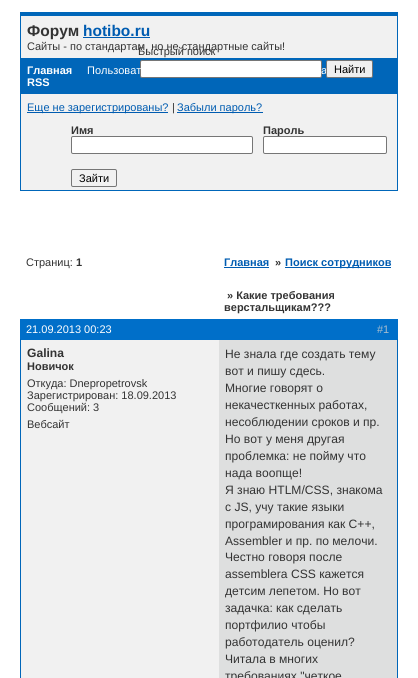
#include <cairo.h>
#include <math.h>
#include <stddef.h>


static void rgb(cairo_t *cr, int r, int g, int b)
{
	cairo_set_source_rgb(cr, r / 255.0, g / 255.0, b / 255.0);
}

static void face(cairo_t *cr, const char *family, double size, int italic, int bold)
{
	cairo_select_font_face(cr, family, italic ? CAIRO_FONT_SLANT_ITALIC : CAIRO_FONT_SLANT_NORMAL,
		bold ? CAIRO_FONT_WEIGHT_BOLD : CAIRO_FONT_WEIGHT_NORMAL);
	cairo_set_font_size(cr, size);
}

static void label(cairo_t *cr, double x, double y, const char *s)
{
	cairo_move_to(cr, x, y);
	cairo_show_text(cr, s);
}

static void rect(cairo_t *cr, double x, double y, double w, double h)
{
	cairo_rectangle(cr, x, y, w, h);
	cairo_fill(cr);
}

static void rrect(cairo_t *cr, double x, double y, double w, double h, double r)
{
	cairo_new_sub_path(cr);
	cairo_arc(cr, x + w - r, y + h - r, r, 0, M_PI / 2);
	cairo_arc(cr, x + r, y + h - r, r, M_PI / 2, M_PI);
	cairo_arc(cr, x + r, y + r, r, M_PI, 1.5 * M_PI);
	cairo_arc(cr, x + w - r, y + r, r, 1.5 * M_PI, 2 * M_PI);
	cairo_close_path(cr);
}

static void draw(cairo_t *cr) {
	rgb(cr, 255, 255, 255);
	cairo_paint(cr);
	rgb(cr, 241, 241, 241);
	rect(cr, 21, 16, 376, 174);
	rgb(cr, 0, 102, 185);
	rect(cr, 20, 12, 378, 4);
	rect(cr, 397, 12, 1, 179);
	rect(cr, 20, 190, 378, 1);
	rect(cr, 20, 12, 1, 179);
	face(cr, "Liberation Sans", 15.5, 0, 1);
	rgb(cr, 51, 51, 51);
	label(cr, 27, 36, "Форум");
	rgb(cr, 0, 92, 177);
	label(cr, 83, 36, "hotibo.ru");
	rect(cr, 83, 37, 67, 1);
	face(cr, "Liberation Sans", 11, 0, 0);
	rgb(cr, 51, 51, 51);
	label(cr, 27, 50, "Сайты - по стандартам, но не стандартные сайты!");
	rgb(cr, 0, 102, 185);
	rect(cr, 21, 58, 376, 36);
	rgb(cr, 51, 51, 51);
	label(cr, 138, 55, "Быстрый поиск");
	rgb(cr, 255, 255, 255);
	rrect(cr, 140.5, 60.5, 181, 17, 1.5);
	cairo_fill_preserve(cr);
	rgb(cr, 118, 118, 118);
	cairo_set_line_width(cr, 1);
	cairo_stroke(cr);
	rgb(cr, 255, 255, 255);
	label(cr, 321, 74, "а");
	rgb(cr, 239, 239, 239);
	rrect(cr, 326.5, 60.5, 46, 17, 1.5);
	cairo_fill_preserve(cr);
	rgb(cr, 118, 118, 118);
	cairo_stroke(cr);
	rgb(cr, 0, 0, 0);
	label(cr, 334, 73, "Найти");
	face(cr, "Liberation Sans", 11, 0, 1);
	rgb(cr, 255, 255, 255);
	label(cr, 27, 74, "Главная");
	face(cr, "Liberation Sans", 11, 0, 0);
	label(cr, 87, 74, "Пользоват");
	face(cr, "Liberation Sans", 11, 0, 1);
	label(cr, 27, 86, "RSS");
	rgb(cr, 0, 92, 177);
	rect(cr, 27, 112, 141, 1);
	face(cr, "Liberation Sans", 11, 0, 0);
	label(cr, 27, 111, "Еще не зарегистрированы?");
	rgb(cr, 51, 51, 51);
	label(cr, 172, 111, "|");
	rgb(cr, 0, 92, 177);
	rect(cr, 177, 112, 86, 1);
	label(cr, 177, 111, "Забыли пароль?");
	face(cr, "Liberation Sans", 11, 0, 1);
	rgb(cr, 51, 51, 51);
	label(cr, 71, 134, "Имя");
	rgb(cr, 255, 255, 255);
	rrect(cr, 71.5, 136.5, 181, 17, 1.5);
	cairo_fill_preserve(cr);
	rgb(cr, 118, 118, 118);
	cairo_stroke(cr);
	rgb(cr, 51, 51, 51);
	label(cr, 263, 134, "Пароль");
	rgb(cr, 255, 255, 255);
	rrect(cr, 263.5, 136.5, 123, 17, 1.5);
	cairo_fill_preserve(cr);
	rgb(cr, 118, 118, 118);
	cairo_stroke(cr);
	rrect(cr, 71.5, 169.5, 45, 17, 1.5);
	cairo_stroke(cr);
	face(cr, "Liberation Sans", 11, 0, 0);
	rgb(cr, 0, 0, 0);
	label(cr, 79, 182, "Зайти");
	rgb(cr, 51, 51, 51);
	label(cr, 26, 266, "Страниц:");
	face(cr, "Liberation Sans", 11, 0, 1);
	label(cr, 76, 266, "1");
	rgb(cr, 0, 92, 177);
	label(cr, 224, 266, "Главная");
	rect(cr, 224, 267, 45, 1);
	rgb(cr, 51, 51, 51);
	label(cr, 275, 266, "»");
	rgb(cr, 0, 92, 177);
	rect(cr, 285, 267, 106, 1);
	label(cr, 285, 266, "Поиск сотрудников");
	rgb(cr, 51, 51, 51);
	label(cr, 227, 299, "» Какие требования");
	label(cr, 224, 311, "верстальщикам?\077?");
	rgb(cr, 0, 111, 201);
	rect(cr, 20, 319, 378, 21);
	face(cr, "Liberation Sans", 11, 0, 0);
	rgb(cr, 255, 255, 255);
	label(cr, 26, 333, "21.09.2013 00:23");
	rgb(cr, 170, 189, 205);
	label(cr, 377, 333, "#1");
	rgb(cr, 222, 223, 223);
	rect(cr, 219, 340, 178, 338);
	rgb(cr, 0, 102, 185);
	rect(cr, 397, 339, 1, 339);
	rect(cr, 20, 339, 1, 339);
	rgb(cr, 241, 241, 241);
	rect(cr, 21, 340, 198, 338);
	face(cr, "Liberation Sans", 12.1, 0, 1);
	rgb(cr, 51, 51, 51);
	label(cr, 27, 357, "Galina");
	face(cr, "Liberation Sans", 11, 0, 1);
	label(cr, 27, 370, "Новичок");
	face(cr, "Liberation Sans", 11, 0, 0);
	label(cr, 27, 387, "Откуда: Dnepropetrovsk");
	label(cr, 27, 399, "Зарегистрирован: 18.09.2013");
	label(cr, 27, 411, "Сообщений: 3");
	label(cr, 27, 428, "Вебсайт");
	face(cr, "Liberation Sans", 12.1, 0, 0);
	label(cr, 225, 358, "Не знала где создать тему");
	label(cr, 225, 375, "вот и пишу сдесь.");
	label(cr, 225, 392, "Многие говорят о");
	label(cr, 225, 409, "некачесткенных работах,");
	label(cr, 225, 426, "несоблюдении сроков и пр.");
	label(cr, 225, 443, "Но вот у меня другая");
	label(cr, 225, 460, "проблемка: не пойму что");
	label(cr, 225, 477, "нада воопще!");
	label(cr, 225, 494, "Я знаю HTLM/CSS, знакома");
	label(cr, 225, 511, "с JS, учу такие языки");
	label(cr, 225, 528, "програмирования как С++,");
	label(cr, 225, 545, "Assembler и пр. по мелочи.");
	label(cr, 225, 561, "Честно говоря после");
	label(cr, 225, 578, "assemblera СSS кажется");
	label(cr, 225, 595, "детсим лепетом. Но вот");
	label(cr, 225, 612, "задачка: как сделать");
	label(cr, 225, 629, "портфилио чтобы");
	label(cr, 225, 646, "работодатель оценил?");
	label(cr, 225, 663, "Читала в многих");
	label(cr, 225, 680, "требованиях \"четкое");
}

int main(void) {
	cairo_surface_t *surface = cairo_image_surface_create(CAIRO_FORMAT_RGB24, 418, 678);
	cairo_t *cr = cairo_create(surface);
	cairo_font_options_t *options = cairo_font_options_create();
	cairo_font_options_set_hint_metrics(options, CAIRO_HINT_METRICS_OFF);
	cairo_font_options_set_hint_style(options, CAIRO_HINT_STYLE_NONE);
	cairo_set_font_options(cr, options);
	cairo_set_miter_limit(cr, 4);
	draw(cr);
	cairo_surface_write_to_png(surface, "render.png");
	cairo_font_options_destroy(options);
	cairo_destroy(cr);
	cairo_surface_destroy(surface);
	return 0;
}
